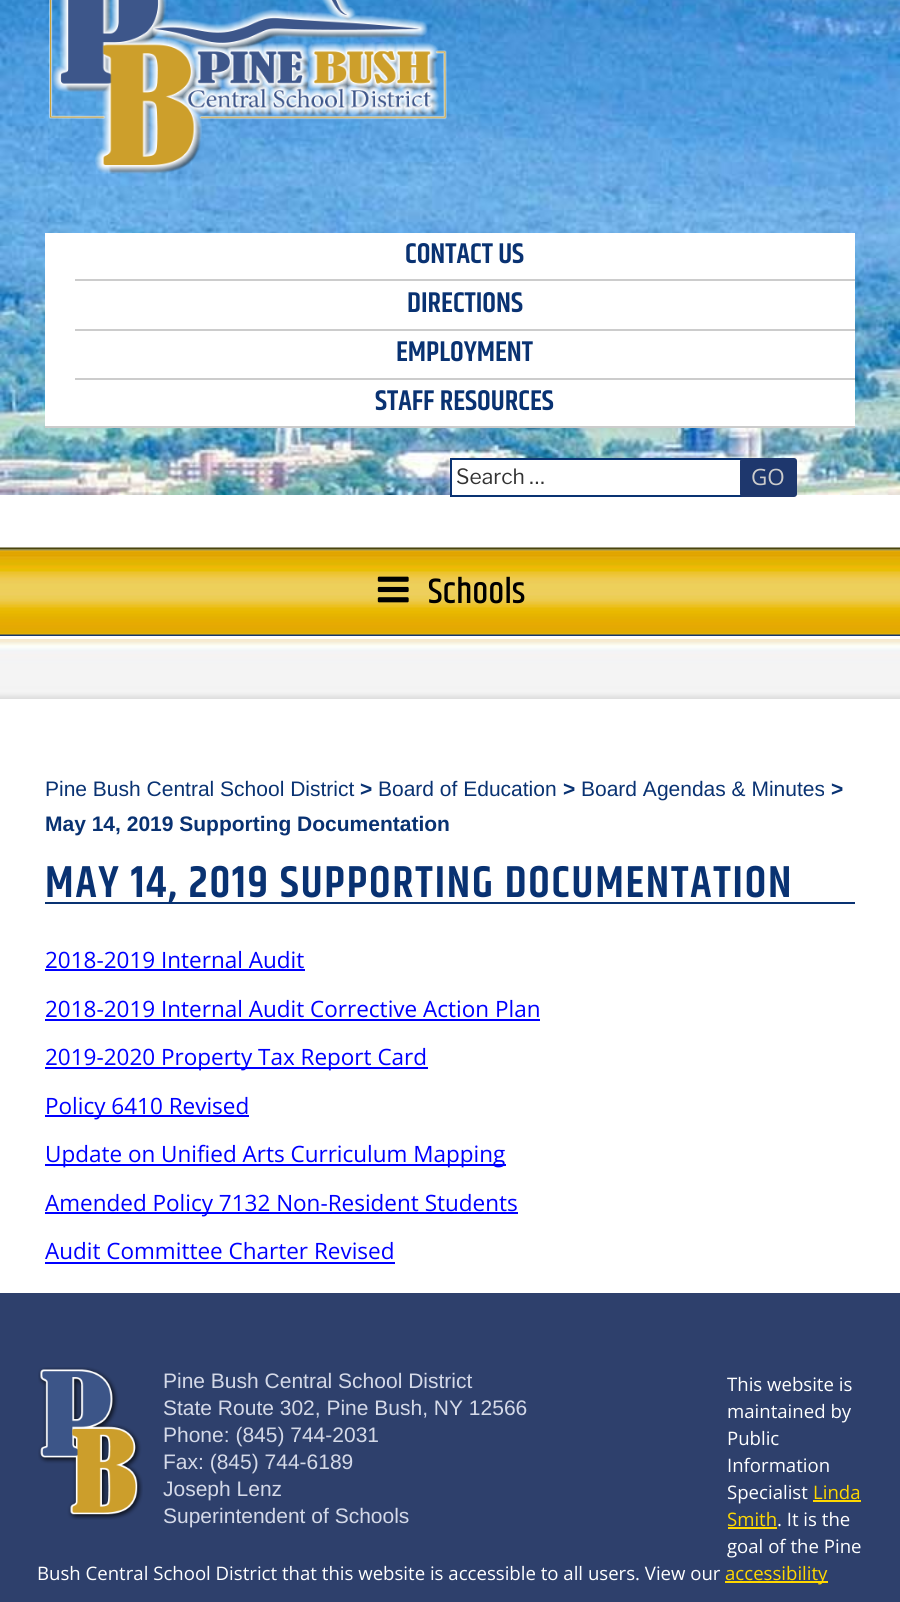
#include <cairo.h>
#include <math.h>
#include <stddef.h>


static void rgb(cairo_t *cr, int r, int g, int b)
{
	cairo_set_source_rgb(cr, r / 255.0, g / 255.0, b / 255.0);
}

static void face(cairo_t *cr, const char *family, double size, int italic, int bold)
{
	cairo_select_font_face(cr, family, italic ? CAIRO_FONT_SLANT_ITALIC : CAIRO_FONT_SLANT_NORMAL,
		bold ? CAIRO_FONT_WEIGHT_BOLD : CAIRO_FONT_WEIGHT_NORMAL);
	cairo_set_font_size(cr, size);
}

static void label(cairo_t *cr, double x, double y, const char *s)
{
	cairo_move_to(cr, x, y);
	cairo_show_text(cr, s);
}

static void tracked(cairo_t *cr, double x, double y, const char *s, double letter, double word)
{
	cairo_move_to(cr, x, y);
	while (*s) {
		char ch[5] = {0};
		int n = 0;
		do ch[n++] = *s++; while ((*s & 0xC0) == 0x80);
		cairo_show_text(cr, ch);
		cairo_rel_move_to(cr, letter + word * (*ch == ' '), 0);
	}
}

static void rect(cairo_t *cr, double x, double y, double w, double h)
{
	cairo_rectangle(cr, x, y, w, h);
	cairo_fill(cr);
}

static void rrect(cairo_t *cr, double x, double y, double w, double h, double r)
{
	cairo_new_sub_path(cr);
	cairo_arc(cr, x + w - r, y + h - r, r, 0, M_PI / 2);
	cairo_arc(cr, x + r, y + h - r, r, M_PI / 2, M_PI);
	cairo_arc(cr, x + r, y + r, r, M_PI, 1.5 * M_PI);
	cairo_arc(cr, x + w - r, y + r, r, 1.5 * M_PI, 2 * M_PI);
	cairo_close_path(cr);
}

static void image(cairo_t *cr, const char *path, double x, double y, double w, double h)
{
	cairo_surface_t *image = cairo_image_surface_create_from_png(path);
	cairo_save(cr);
	cairo_set_source_surface(cr, image, x, y);
	cairo_rectangle(cr, x, y, w, h);
	cairo_fill(cr);
	cairo_restore(cr);
	cairo_surface_destroy(image);
}

static void draw(cairo_t *cr) {
	rgb(cr, 255, 255, 255);
	cairo_paint(cr);
	image(cr, "image0.png", 0, 0, 900, 495);
	image(cr, "image1.png", 49, 0, 398, 174);
	rgb(cr, 255, 255, 255);
	rect(cr, 45, 233, 810, 193);
	rgb(cr, 204, 204, 204);
	rect(cr, 45, 426, 810, 2);
	rect(cr, 75, 279, 780, 2);
	face(cr, "Khand SemiBold", 28.75, 0, 0);
	rgb(cr, 9, 50, 114);
	label(cr, 405, 263, "CONTACT US");
	rgb(cr, 204, 204, 204);
	rect(cr, 75, 329, 780, 2);
	rgb(cr, 9, 50, 114);
	label(cr, 407, 312, "DIRECTIONS");
	rgb(cr, 204, 204, 204);
	rect(cr, 75, 378, 780, 2);
	rgb(cr, 9, 50, 114);
	label(cr, 396, 361, "EMPLOYMENT");
	label(cr, 375, 410, "STAFF RESOURCES");
	rgb(cr, 255, 255, 255);
	rect(cr, 452, 460, 289, 35);
	cairo_rectangle(cr, 451, 459, 292, 37);
	rgb(cr, 9, 50, 114);
	cairo_stroke(cr);
	face(cr, "Libre Franklin Thin", 21, 0, 0);
	rgb(cr, 51, 51, 51);
	label(cr, 456, 484, "Search …");
	rgb(cr, 30, 55, 109);
	rrect(cr, 740, 458, 57, 39, 3);
	cairo_fill(cr);
	face(cr, "Open Sans", 22.5, 0, 0);
	rgb(cr, 204, 204, 204);
	label(cr, 751, 485, "GO");
	image(cr, "image2.png", 0, 547, 900, 89);
	image(cr, "image3.png", 377, 576, 32, 27);
	face(cr, "Khand Medium", 36, 0, 0);
	rgb(cr, 0, 0, 0);
	label(cr, 428, 603, "Schools");
	image(cr, "image4.png", 0, 639, 900, 60);
	face(cr, "Liberation Sans", 21, 0, 0);
	rgb(cr, 9, 50, 114);
	label(cr, 45, 796, "Pine Bush Central School District");
	face(cr, "Liberation Sans", 21, 0, 1);
	label(cr, 360, 796, ">");
	face(cr, "Liberation Sans", 21, 0, 0);
	label(cr, 378, 796, "Board of Education");
	face(cr, "Liberation Sans", 21, 0, 1);
	label(cr, 563, 796, ">");
	face(cr, "Liberation Sans", 21, 0, 0);
	label(cr, 581, 796, "Board Agendas & Minutes");
	face(cr, "Liberation Sans", 21, 0, 1);
	label(cr, 831, 796, ">");
	label(cr, 45, 831, "May 14, 2019 Supporting Documentation");
	rect(cr, 45, 902, 810, 2);
	face(cr, "Khand SemiBold", 45, 0, 0);
	tracked(cr, 45, 897, "MAY 14, 2019 SUPPORTING DOCUMENTATION", 1.8, 0);
	face(cr, "Open Sans", 22.5, 0, 0);
	rgb(cr, 0, 0, 255);
	label(cr, 45, 968, "2018-2019 Internal Audit");
	rect(cr, 45, 969, 260, 2);
	label(cr, 45, 1017, "2018-2019 Internal Audit Corrective Action Plan");
	rect(cr, 45, 1019, 495, 2);
	rect(cr, 45, 1067, 383, 2);
	label(cr, 45, 1065, "2019-2020 Property Tax Report Card");
	rect(cr, 45, 1115, 204, 2);
	label(cr, 45, 1114, "Policy 6410 Revised");
	rect(cr, 45, 1164, 461, 2);
	label(cr, 45, 1162, "Update on Unified Arts Curriculum Mapping");
	rect(cr, 45, 1212, 473, 2);
	label(cr, 45, 1211, "Amended Policy 7132 Non-Resident Students");
	label(cr, 45, 1259, "Audit Committee Charter Revised");
	rect(cr, 45, 1262, 350, 2);
	rgb(cr, 46, 64, 108);
	rect(cr, 0, 1293, 900, 309);
	image(cr, "image5.png", 38, 1367, 105, 153);
	face(cr, "Liberation Sans", 21, 0, 0);
	rgb(cr, 212, 217, 232);
	label(cr, 163, 1388, "Pine Bush Central School District");
	label(cr, 163, 1415, "State Route 302, Pine Bush, NY 12566");
	label(cr, 163, 1442, "Phone: (845) 744-2031");
	label(cr, 163, 1469, "Fax: (845) 744-6189");
	label(cr, 163, 1496, "Joseph Lenz");
	label(cr, 163, 1523, "Superintendent of Schools");
	face(cr, "Open Sans", 18.6, 0, 0);
	rgb(cr, 255, 255, 255);
	label(cr, 727, 1391, "This website is");
	label(cr, 727, 1418, "maintained by");
	label(cr, 727, 1445, "Public");
	label(cr, 727, 1472, "Information");
	label(cr, 727, 1499, "Specialist");
	rgb(cr, 255, 216, 0);
	label(cr, 813, 1499, "Linda");
	rect(cr, 813, 1500, 48, 2);
	label(cr, 727, 1526, "Smith");
	rect(cr, 728, 1527, 49, 2);
	rgb(cr, 255, 255, 255);
	label(cr, 777, 1526, ". It is the");
	label(cr, 727, 1553, "goal of the Pine");
	label(cr, 37, 1580, "Bush Central School District that this website is accessible to all users. View our");
	rgb(cr, 255, 216, 0);
	rect(cr, 725, 1581, 103, 2);
	label(cr, 725, 1580, "accessibility");
}

int main(void) {
	cairo_surface_t *surface = cairo_image_surface_create(CAIRO_FORMAT_RGB24, 900, 1602);
	cairo_t *cr = cairo_create(surface);
	cairo_font_options_t *options = cairo_font_options_create();
	cairo_font_options_set_hint_metrics(options, CAIRO_HINT_METRICS_OFF);
	cairo_font_options_set_hint_style(options, CAIRO_HINT_STYLE_NONE);
	cairo_set_font_options(cr, options);
	cairo_set_miter_limit(cr, 4);
	draw(cr);
	cairo_surface_write_to_png(surface, "render.png");
	cairo_font_options_destroy(options);
	cairo_destroy(cr);
	cairo_surface_destroy(surface);
	return 0;
}
